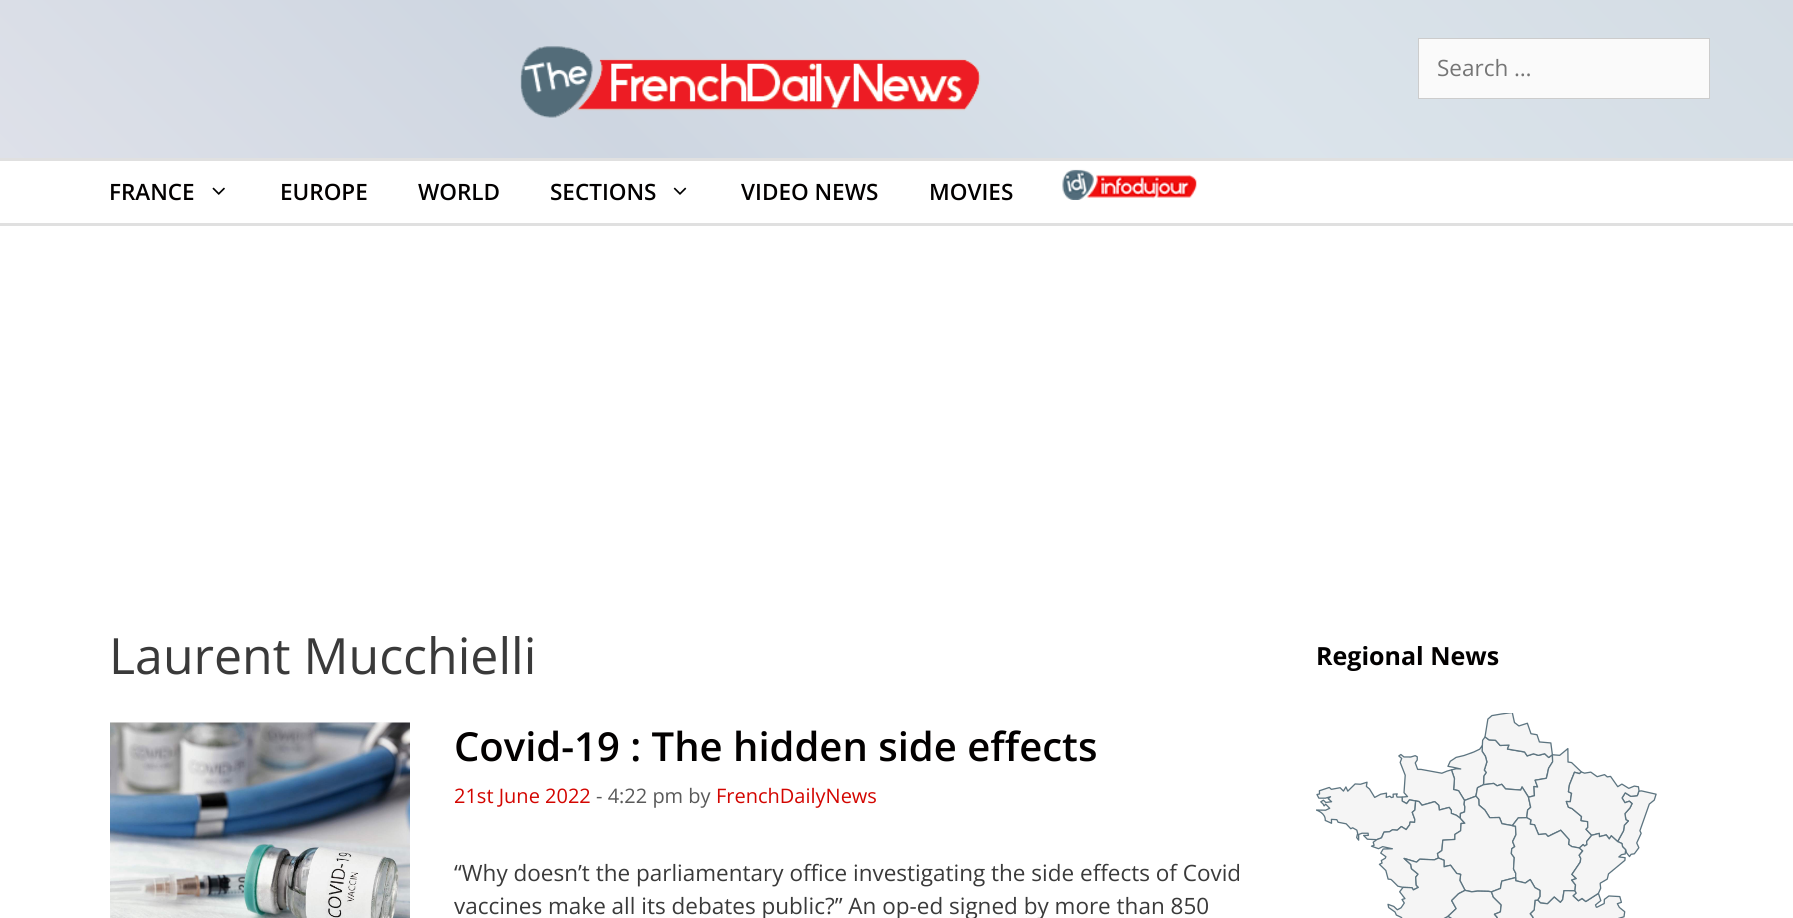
#include <cairo.h>
#include <math.h>
#include <stddef.h>


static void rgb(cairo_t *cr, int r, int g, int b)
{
	cairo_set_source_rgb(cr, r / 255.0, g / 255.0, b / 255.0);
}

static void face(cairo_t *cr, const char *family, double size, int italic, int bold)
{
	cairo_select_font_face(cr, family, italic ? CAIRO_FONT_SLANT_ITALIC : CAIRO_FONT_SLANT_NORMAL,
		bold ? CAIRO_FONT_WEIGHT_BOLD : CAIRO_FONT_WEIGHT_NORMAL);
	cairo_set_font_size(cr, size);
}

static void label(cairo_t *cr, double x, double y, const char *s)
{
	cairo_move_to(cr, x, y);
	cairo_show_text(cr, s);
}

static void rect(cairo_t *cr, double x, double y, double w, double h)
{
	cairo_rectangle(cr, x, y, w, h);
	cairo_fill(cr);
}

static void image(cairo_t *cr, const char *path, double x, double y, double w, double h)
{
	cairo_surface_t *image = cairo_image_surface_create_from_png(path);
	cairo_save(cr);
	cairo_set_source_surface(cr, image, x, y);
	cairo_rectangle(cr, x, y, w, h);
	cairo_fill(cr);
	cairo_restore(cr);
	cairo_surface_destroy(image);
}

static void draw(cairo_t *cr) {
	cairo_pattern_t *gradient;
	rgb(cr, 255, 255, 255);
	cairo_paint(cr);
	gradient = cairo_pattern_create_linear(409, 567, 1385, -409);
	cairo_pattern_add_color_stop_rgba(gradient, 0, 0.871, 0.882, 0.914, 1);
	cairo_pattern_add_color_stop_rgba(gradient, 0.33, 0.808, 0.839, 0.882, 1);
	cairo_pattern_add_color_stop_rgba(gradient, 0.66, 0.859, 0.894, 0.922, 1);
	cairo_pattern_add_color_stop_rgba(gradient, 1, 0.831, 0.863, 0.894, 1);
	cairo_set_source(cr, gradient);
	cairo_pattern_destroy(gradient);
	rect(cr, 0, 0, 1793, 158);
	image(cr, "image0.png", 520, 46, 461, 72);
	rgb(cr, 250, 250, 250);
	cairo_rectangle(cr, 1418.5, 38.5, 291, 60);
	cairo_fill_preserve(cr);
	rgb(cr, 204, 204, 204);
	cairo_set_line_width(cr, 1);
	cairo_stroke(cr);
	face(cr, "Open Sans", 22.5, 0, 0);
	rgb(cr, 117, 117, 117);
	label(cr, 1437, 76, "Search …");
	rgb(cr, 224, 224, 224);
	rect(cr, 0, 158, 1793, 3);
	rect(cr, 0, 223, 1793, 3);
	face(cr, "Open Sans SemiBold", 22.5, 0, 0);
	rgb(cr, 2, 0, 0);
	label(cr, 109, 200, "FRANCE");
	image(cr, "image1.png", 212, 187, 13, 8);
	label(cr, 280, 200, "EUROPE");
	label(cr, 418, 200, "WORLD");
	label(cr, 550, 200, "SECTIONS");
	image(cr, "image2.png", 673, 187, 14, 8);
	label(cr, 741, 200, "VIDEO NEWS");
	label(cr, 929, 200, "MOVIES");
	image(cr, "image3.png", 1062, 169, 135, 31);
	face(cr, "Open Sans", 50, 0, 0);
	rgb(cr, 58, 58, 58);
	label(cr, 109, 674, "Laurent Mucchielli");
	image(cr, "image4.png", 110, 722, 300, 196);
	face(cr, "Open Sans SemiBold", 40, 0, 0);
	rgb(cr, 2, 0, 0);
	label(cr, 454, 761, "Covid-19 : The hidden side effects");
	face(cr, "Open Sans", 20, 0, 0);
	rgb(cr, 211, 5, 0);
	label(cr, 454, 803, "21st June 2022");
	rgb(cr, 89, 89, 89);
	label(cr, 596, 803, "- 4:22 pm by");
	rgb(cr, 211, 5, 0);
	label(cr, 716, 803, "FrenchDailyNews");
	face(cr, "Open Sans", 22.5, 0, 0);
	rgb(cr, 58, 58, 58);
	label(cr, 454, 881, "“Why doesn’t the parliamentary office investigating the side effects of Covid");
	label(cr, 454, 914, "vaccines make all its debates public?” An op-ed signed by more than 850");
	face(cr, "Open Sans", 25, 0, 1);
	rgb(cr, 2, 0, 0);
	label(cr, 1316, 665, "Regional News");
	image(cr, "image5.png", 1316, 713, 341, 205);
}

int main(void) {
	cairo_surface_t *surface = cairo_image_surface_create(CAIRO_FORMAT_RGB24, 1793, 918);
	cairo_t *cr = cairo_create(surface);
	cairo_font_options_t *options = cairo_font_options_create();
	cairo_font_options_set_hint_metrics(options, CAIRO_HINT_METRICS_OFF);
	cairo_font_options_set_hint_style(options, CAIRO_HINT_STYLE_NONE);
	cairo_set_font_options(cr, options);
	cairo_set_miter_limit(cr, 4);
	draw(cr);
	cairo_surface_write_to_png(surface, "render.png");
	cairo_font_options_destroy(options);
	cairo_destroy(cr);
	cairo_surface_destroy(surface);
	return 0;
}
